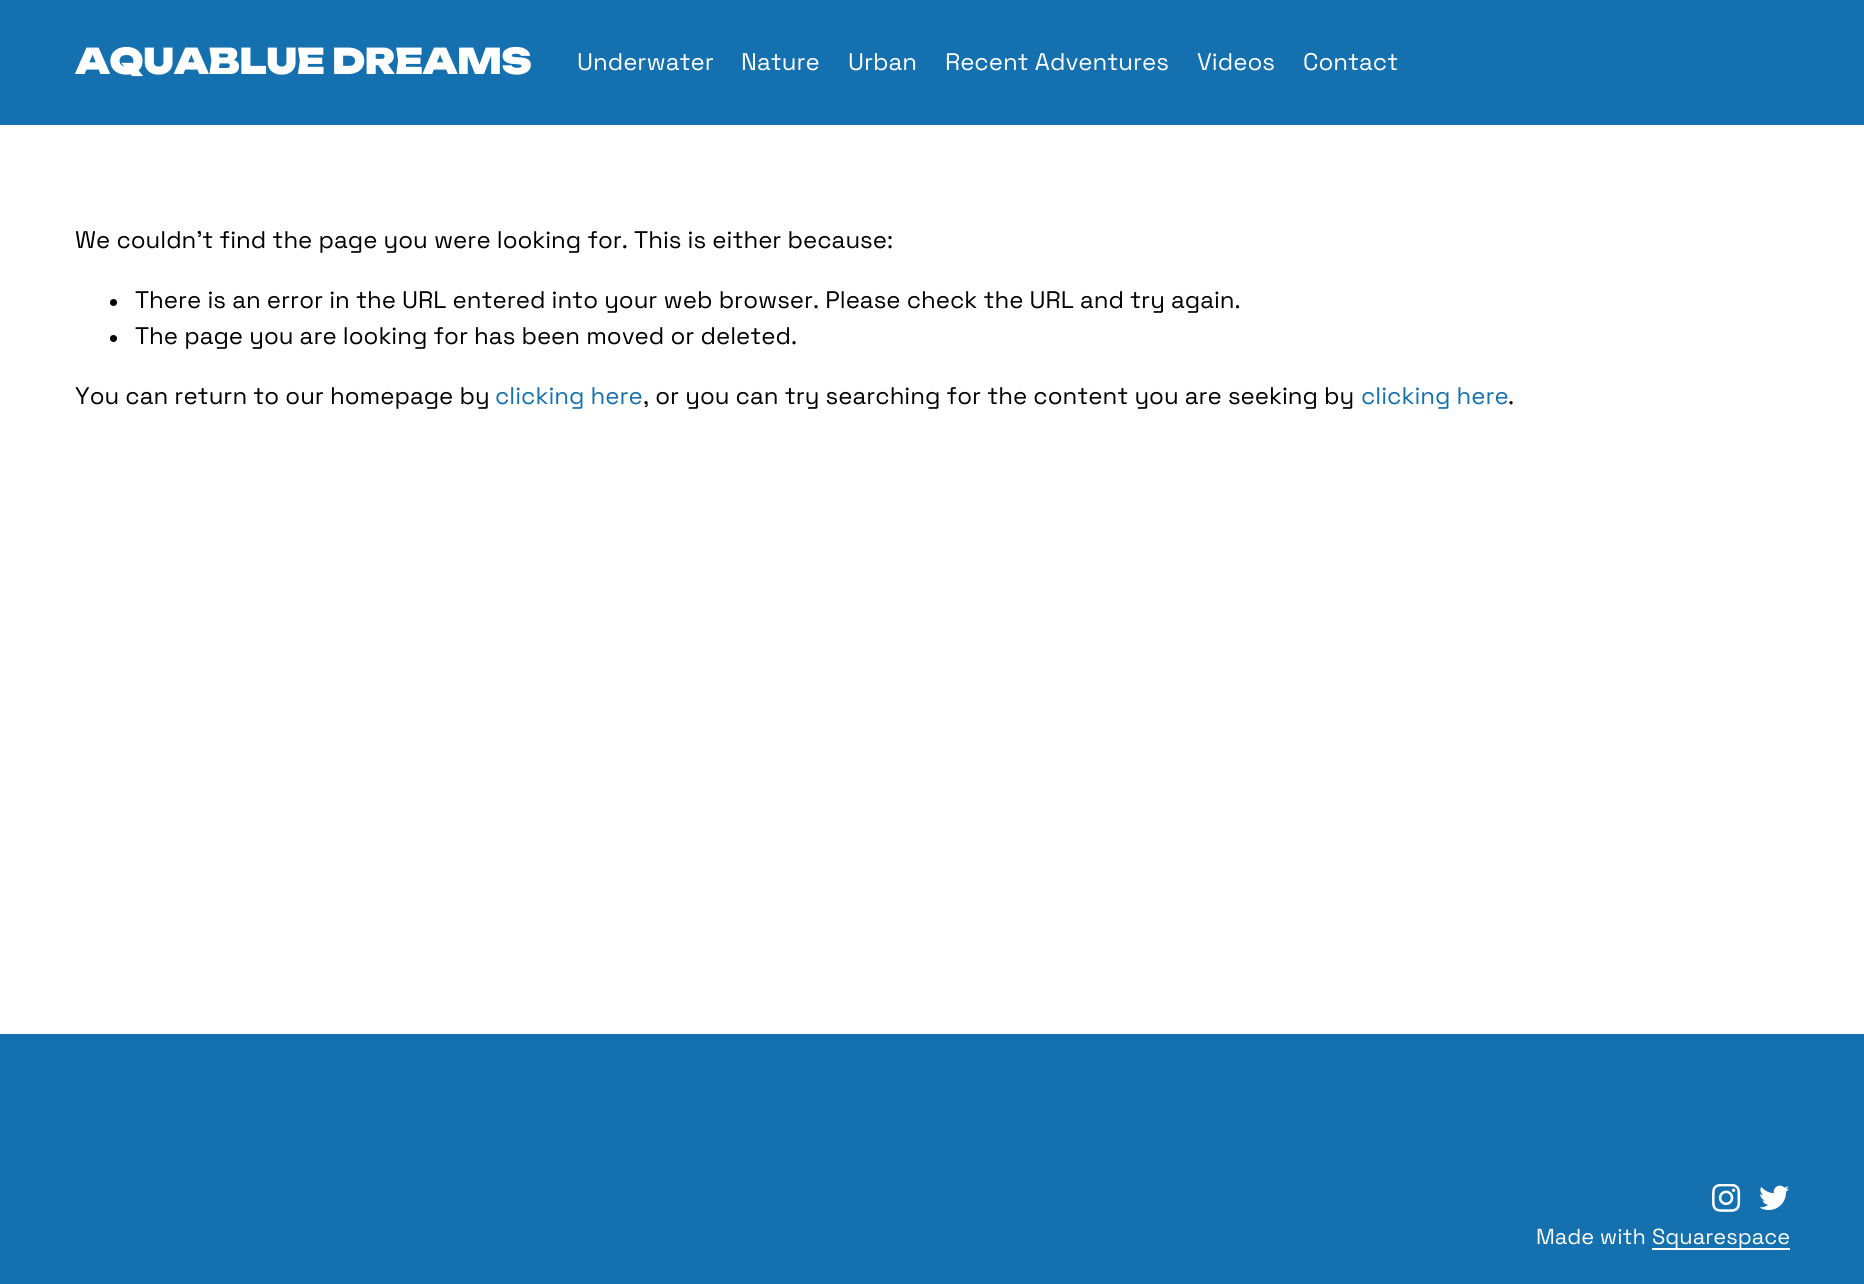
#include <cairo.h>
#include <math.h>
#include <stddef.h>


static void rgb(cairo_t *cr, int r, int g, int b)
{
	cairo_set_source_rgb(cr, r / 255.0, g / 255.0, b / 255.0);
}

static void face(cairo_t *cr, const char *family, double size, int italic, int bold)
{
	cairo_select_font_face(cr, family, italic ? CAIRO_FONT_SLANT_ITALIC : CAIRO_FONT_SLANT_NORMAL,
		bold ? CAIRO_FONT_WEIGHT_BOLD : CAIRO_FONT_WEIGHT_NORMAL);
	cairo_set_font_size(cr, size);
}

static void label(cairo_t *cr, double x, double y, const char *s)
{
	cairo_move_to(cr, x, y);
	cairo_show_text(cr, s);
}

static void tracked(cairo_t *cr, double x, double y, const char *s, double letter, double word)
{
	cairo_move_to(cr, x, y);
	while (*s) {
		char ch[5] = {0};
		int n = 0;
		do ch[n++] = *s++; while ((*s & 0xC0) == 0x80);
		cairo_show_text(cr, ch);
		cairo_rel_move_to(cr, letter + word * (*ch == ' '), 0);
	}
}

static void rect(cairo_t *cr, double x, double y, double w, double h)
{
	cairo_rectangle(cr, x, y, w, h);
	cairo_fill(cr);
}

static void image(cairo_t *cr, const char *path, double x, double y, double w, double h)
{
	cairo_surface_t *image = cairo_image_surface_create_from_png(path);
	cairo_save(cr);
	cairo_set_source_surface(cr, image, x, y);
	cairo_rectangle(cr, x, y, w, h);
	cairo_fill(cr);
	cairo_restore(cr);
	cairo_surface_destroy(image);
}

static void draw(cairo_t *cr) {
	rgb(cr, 255, 255, 255);
	cairo_paint(cr);
	rgb(cr, 20, 112, 175);
	rect(cr, 0, 0, 1864, 125);
	face(cr, "Unbounded Black", 35.25, 0, 0);
	rgb(cr, 255, 255, 255);
	tracked(cr, 75, 74, "AQUABLUE DREAMS", -0.75, 0);
	face(cr, "Space Grotesk", 24, 0, 0);
	label(cr, 577, 70, "Underwater");
	label(cr, 741, 70, "Nature");
	label(cr, 848, 70, "Urban");
	label(cr, 945, 70, "Recent Adventures");
	label(cr, 1197, 70, "Videos");
	label(cr, 1303, 70, "Contact");
	rgb(cr, 0, 0, 0);
	label(cr, 75, 248, "We couldn't find the page you were looking for. This is either because:");
	cairo_new_path(cr);
	cairo_arc(cr, 113.5, 302.5, 3.5, 0, 2 * M_PI);
	cairo_fill(cr);
	label(cr, 135, 308, "There is an error in the URL entered into your web browser. Please check the URL and try again.");
	cairo_new_path(cr);
	cairo_arc(cr, 113.5, 338.5, 3.5, 0, 2 * M_PI);
	cairo_fill(cr);
	label(cr, 135, 344, "The page you are looking for has been moved or deleted.");
	label(cr, 75, 404, "You can return to our homepage by");
	rgb(cr, 20, 112, 175);
	label(cr, 495, 404, "clicking here");
	rgb(cr, 0, 0, 0);
	label(cr, 643, 404, ", or you can try searching for the content you are seeking by");
	rgb(cr, 20, 112, 175);
	label(cr, 1361, 404, "clicking here");
	rgb(cr, 0, 0, 0);
	label(cr, 1508, 404, ".");
	rgb(cr, 20, 112, 175);
	rect(cr, 0, 1034, 1864, 250);
	image(cr, "image0.png", 1712, 1184, 29, 28);
	image(cr, "image1.png", 1760, 1185, 29, 25);
	face(cr, "Space Grotesk", 21.75, 0, 0);
	rgb(cr, 255, 255, 255);
	label(cr, 1536, 1244, "Made with");
	rect(cr, 1652, 1248, 138, 2);
	label(cr, 1652, 1244, "Squarespace");
}

int main(void) {
	cairo_surface_t *surface = cairo_image_surface_create(CAIRO_FORMAT_RGB24, 1864, 1284);
	cairo_t *cr = cairo_create(surface);
	cairo_font_options_t *options = cairo_font_options_create();
	cairo_font_options_set_hint_metrics(options, CAIRO_HINT_METRICS_OFF);
	cairo_font_options_set_hint_style(options, CAIRO_HINT_STYLE_NONE);
	cairo_set_font_options(cr, options);
	cairo_set_miter_limit(cr, 4);
	draw(cr);
	cairo_surface_write_to_png(surface, "render.png");
	cairo_font_options_destroy(options);
	cairo_destroy(cr);
	cairo_surface_destroy(surface);
	return 0;
}
